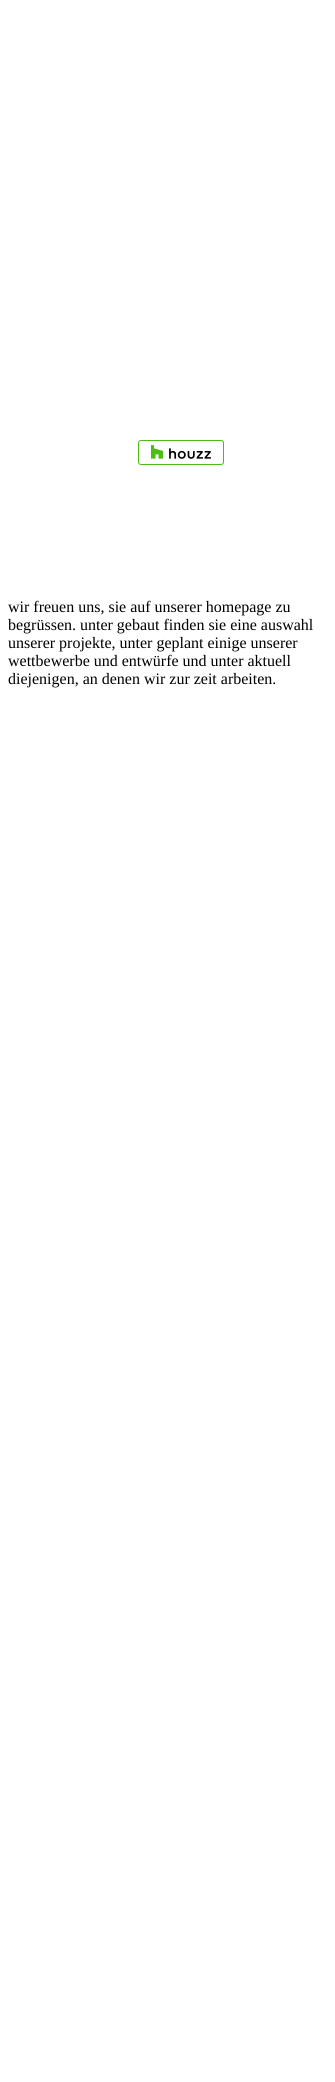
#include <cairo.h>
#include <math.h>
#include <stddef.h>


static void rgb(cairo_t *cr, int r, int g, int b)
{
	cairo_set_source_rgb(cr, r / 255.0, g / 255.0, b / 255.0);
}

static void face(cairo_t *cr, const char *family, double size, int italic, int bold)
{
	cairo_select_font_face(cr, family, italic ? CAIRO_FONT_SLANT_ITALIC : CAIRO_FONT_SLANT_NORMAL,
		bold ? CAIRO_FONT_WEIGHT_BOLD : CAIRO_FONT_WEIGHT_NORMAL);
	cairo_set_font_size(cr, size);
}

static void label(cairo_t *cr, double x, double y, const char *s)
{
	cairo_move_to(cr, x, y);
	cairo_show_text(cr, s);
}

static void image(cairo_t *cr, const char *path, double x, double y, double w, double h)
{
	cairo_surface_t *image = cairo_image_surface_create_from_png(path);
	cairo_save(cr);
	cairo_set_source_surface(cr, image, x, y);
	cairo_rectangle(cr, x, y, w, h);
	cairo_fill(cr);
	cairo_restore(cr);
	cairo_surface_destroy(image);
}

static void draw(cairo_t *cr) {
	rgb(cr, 255, 255, 255);
	cairo_paint(cr);
	image(cr, "image0.png", 138, 440, 86, 25);
	face(cr, "Liberation Serif", 16, 0, 0);
	rgb(cr, 0, 0, 0);
	label(cr, 8, 612, "wir freuen uns, sie auf unserer homepage zu");
	label(cr, 8, 630, "begrüssen. unter gebaut finden sie eine auswahl");
	label(cr, 8, 648, "unserer projekte, unter geplant einige unserer");
	label(cr, 8, 666, "wettbewerbe und entwürfe und unter aktuell");
	label(cr, 8, 684, "diejenigen, an denen wir zur zeit arbeiten.");
}

int main(void) {
	cairo_surface_t *surface = cairo_image_surface_create(CAIRO_FORMAT_RGB24, 335, 2082);
	cairo_t *cr = cairo_create(surface);
	cairo_font_options_t *options = cairo_font_options_create();
	cairo_font_options_set_hint_metrics(options, CAIRO_HINT_METRICS_OFF);
	cairo_font_options_set_hint_style(options, CAIRO_HINT_STYLE_NONE);
	cairo_set_font_options(cr, options);
	cairo_set_miter_limit(cr, 4);
	draw(cr);
	cairo_surface_write_to_png(surface, "render.png");
	cairo_font_options_destroy(options);
	cairo_destroy(cr);
	cairo_surface_destroy(surface);
	return 0;
}
